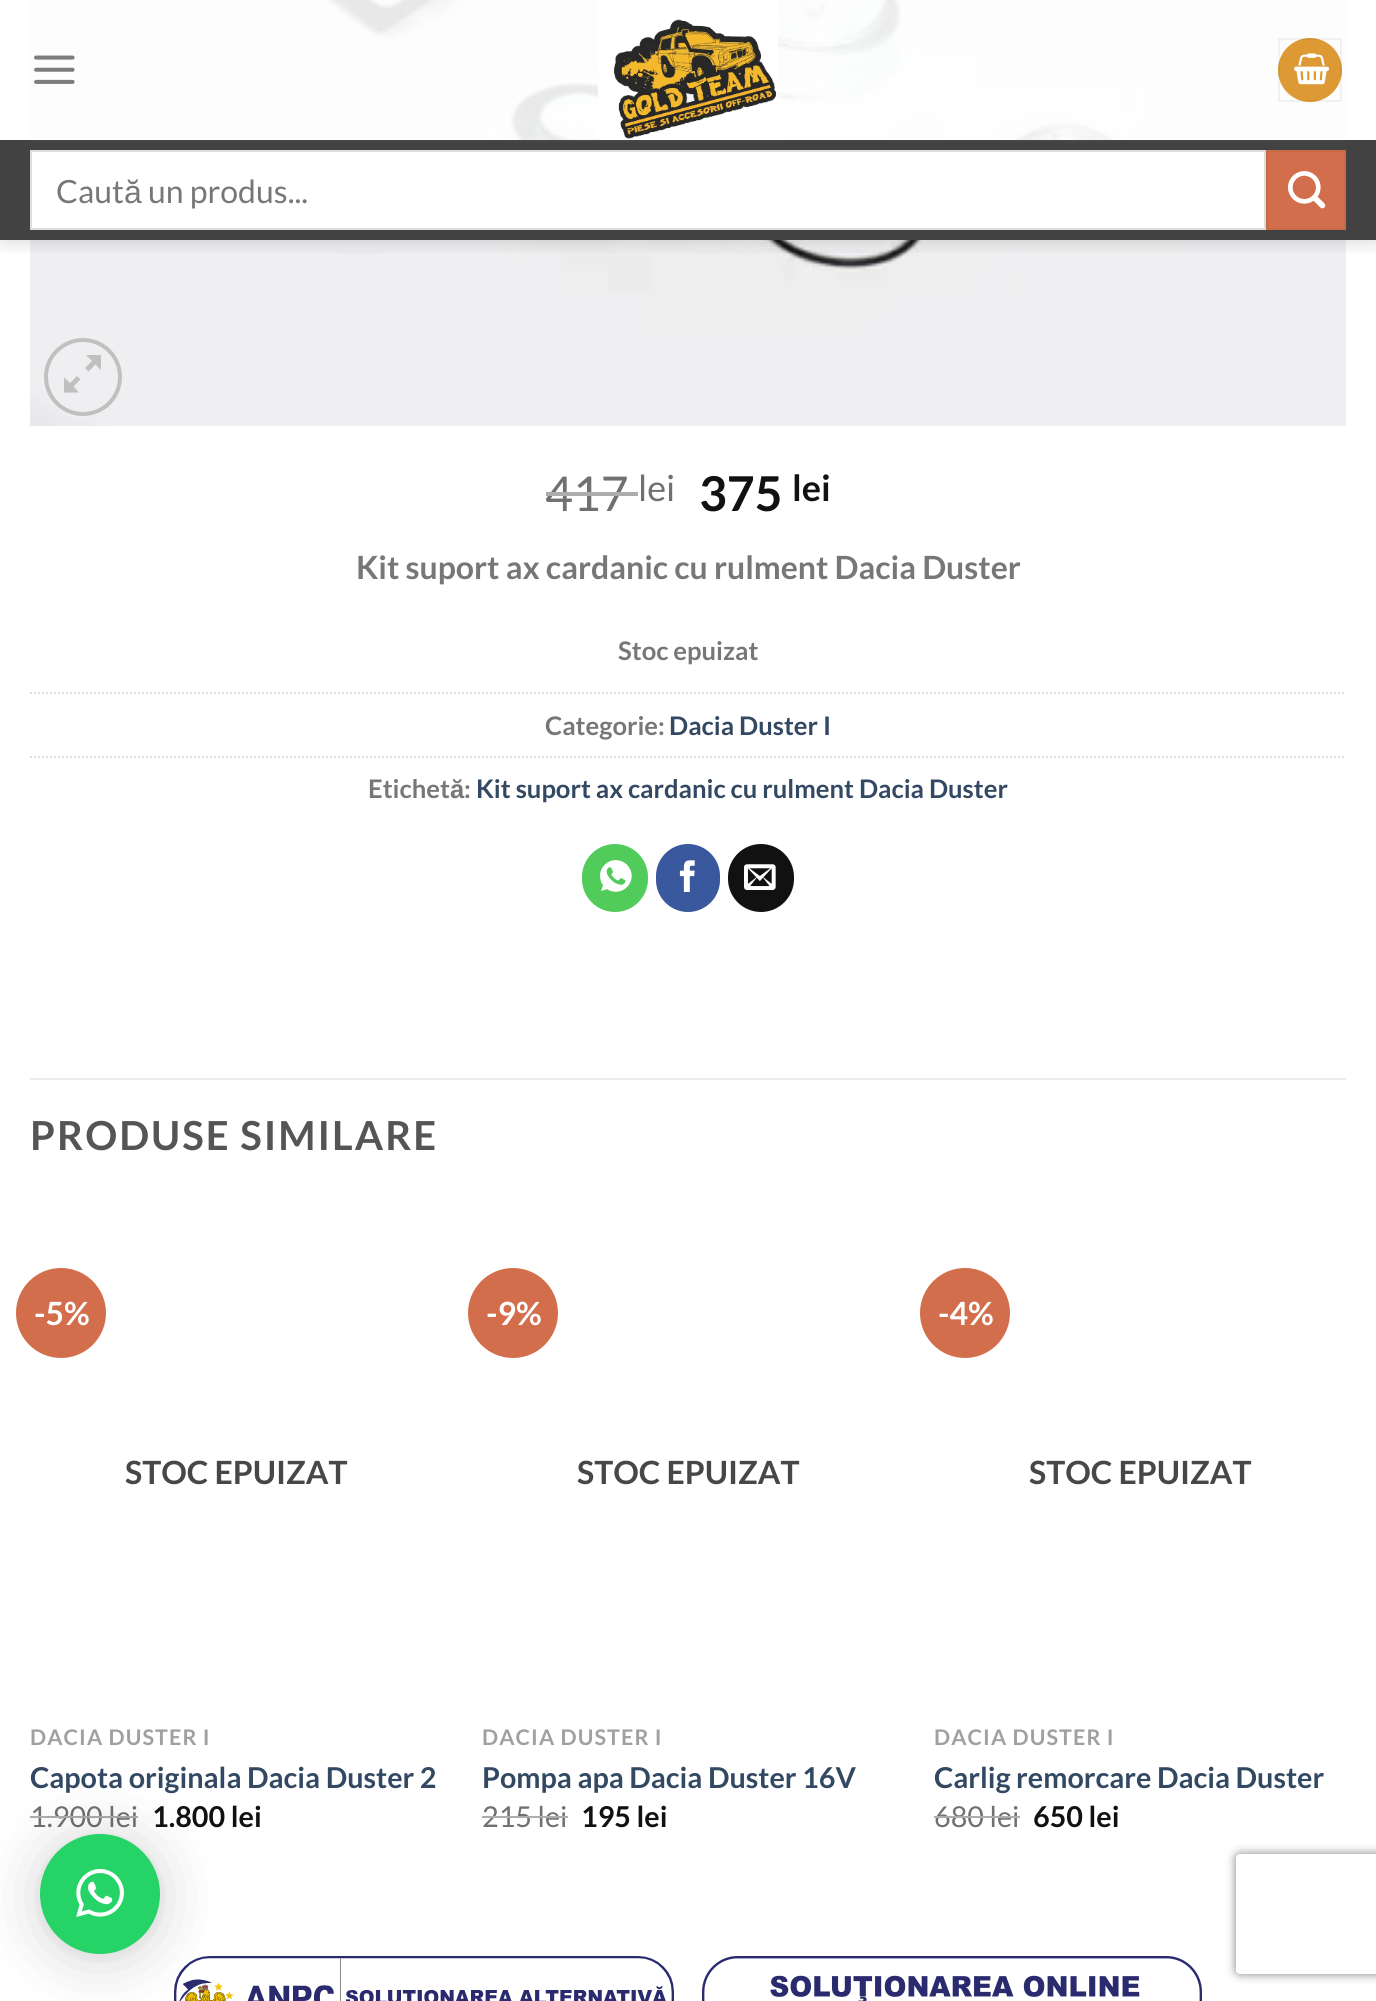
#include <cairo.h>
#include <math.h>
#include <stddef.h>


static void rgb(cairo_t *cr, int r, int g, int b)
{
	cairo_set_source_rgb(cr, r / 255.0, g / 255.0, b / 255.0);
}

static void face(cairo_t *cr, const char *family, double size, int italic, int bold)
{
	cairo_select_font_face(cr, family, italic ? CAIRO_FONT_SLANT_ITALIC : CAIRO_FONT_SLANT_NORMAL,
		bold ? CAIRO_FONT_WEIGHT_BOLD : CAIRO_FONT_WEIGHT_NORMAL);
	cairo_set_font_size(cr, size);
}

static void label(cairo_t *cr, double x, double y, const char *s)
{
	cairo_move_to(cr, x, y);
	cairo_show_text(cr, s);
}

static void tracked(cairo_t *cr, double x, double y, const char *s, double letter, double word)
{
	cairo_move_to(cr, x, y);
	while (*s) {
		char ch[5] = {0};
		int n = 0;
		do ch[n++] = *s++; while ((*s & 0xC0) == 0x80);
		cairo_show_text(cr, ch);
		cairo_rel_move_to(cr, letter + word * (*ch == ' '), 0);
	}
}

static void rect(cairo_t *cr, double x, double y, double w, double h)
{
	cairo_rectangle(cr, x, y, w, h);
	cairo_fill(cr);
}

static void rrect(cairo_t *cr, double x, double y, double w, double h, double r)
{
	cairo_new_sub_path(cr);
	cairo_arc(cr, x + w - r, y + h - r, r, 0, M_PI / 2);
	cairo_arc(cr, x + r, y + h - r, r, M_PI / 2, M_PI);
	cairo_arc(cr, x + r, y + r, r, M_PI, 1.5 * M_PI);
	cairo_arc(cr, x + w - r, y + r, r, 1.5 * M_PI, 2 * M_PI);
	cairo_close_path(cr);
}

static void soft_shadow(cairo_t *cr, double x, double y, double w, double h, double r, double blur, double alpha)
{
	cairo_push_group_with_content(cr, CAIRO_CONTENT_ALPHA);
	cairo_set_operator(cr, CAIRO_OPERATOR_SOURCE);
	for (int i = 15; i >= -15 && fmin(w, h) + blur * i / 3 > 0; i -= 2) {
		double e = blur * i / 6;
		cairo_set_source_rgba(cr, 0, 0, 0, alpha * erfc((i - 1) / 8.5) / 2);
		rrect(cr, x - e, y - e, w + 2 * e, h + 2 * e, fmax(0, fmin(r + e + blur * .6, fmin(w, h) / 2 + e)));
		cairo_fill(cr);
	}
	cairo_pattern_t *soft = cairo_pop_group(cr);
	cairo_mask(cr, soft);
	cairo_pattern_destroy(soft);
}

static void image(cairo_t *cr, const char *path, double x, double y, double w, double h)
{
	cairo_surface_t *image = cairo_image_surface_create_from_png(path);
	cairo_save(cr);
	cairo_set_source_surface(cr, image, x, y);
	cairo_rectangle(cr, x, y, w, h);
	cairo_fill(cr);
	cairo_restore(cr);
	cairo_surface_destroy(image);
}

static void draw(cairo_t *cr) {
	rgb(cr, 255, 255, 255);
	cairo_paint(cr);
	image(cr, "image4.png", 30, 0, 1316, 426);
	cairo_save(cr);
	cairo_rectangle(cr, 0, 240, 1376, 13);
	cairo_clip(cr);
	rgb(cr, 0, 0, 0);
	soft_shadow(cr, 2, 2, 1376, 240, 0, 10, 0.15);
	cairo_restore(cr);
	cairo_set_source_rgba(cr, 1, 1, 1, 0.9);
	rect(cr, 30, 0, 1316, 140);
	image(cr, "image0.png", 34, 55, 41, 29);
	image(cr, "image1.png", 598, 0, 180, 140);
	rgb(cr, 221, 153, 51);
	cairo_arc(cr, 1310, 70, 32, 0, 2 * M_PI);
	cairo_fill(cr);
	cairo_rectangle(cr, 1279, 39, 62, 62);
	cairo_set_source_rgba(cr, 0, 0, 0, 0.05);
	cairo_stroke(cr);
	image(cr, "image2.png", 1294, 53, 36, 32);
	rgb(cr, 66, 66, 66);
	rect(cr, 0, 140, 1376, 100);
	rgb(cr, 71, 71, 71);
	rect(cr, 30, 140, 1316, 2);
	rgb(cr, 255, 255, 255);
	cairo_rectangle(cr, 31, 151, 1234, 78);
	cairo_fill_preserve(cr);
	rgb(cr, 221, 221, 221);
	cairo_stroke(cr);
	face(cr, "Lato", 32, 0, 0);
	rgb(cr, 119, 119, 119);
	label(cr, 56, 203, "Caut");
	face(cr, "Liberation Sans", 32, 0, 0);
	label(cr, 124, 203, "ă");
	face(cr, "Lato", 32, 0, 0);
	label(cr, 148, 203, "un produs...");
	rgb(cr, 210, 110, 75);
	cairo_rectangle(cr, 1267, 151, 78, 78);
	cairo_fill_preserve(cr);
	rgb(cr, 200, 105, 71);
	cairo_stroke(cr);
	image(cr, "image3.png", 1288, 171, 38, 38);
	cairo_arc(cr, 83, 377, 37, 0, 2 * M_PI);
	rgb(cr, 192, 192, 192);
	cairo_set_line_width(cr, 4);
	cairo_stroke(cr);
	cairo_new_path(cr);
	cairo_move_to(cr, 101, 355);
	cairo_line_to(cr, 101, 370);
	cairo_line_to(cr, 95.5, 364.5);
	cairo_line_to(cr, 88.5, 371.5);
	cairo_line_to(cr, 85, 368);
	cairo_line_to(cr, 92, 361);
	cairo_line_to(cr, 86, 355);
	cairo_close_path(cr);
	cairo_move_to(cr, 80.5, 379.5);
	cairo_line_to(cr, 73.5, 386.5);
	cairo_line_to(cr, 79, 392.5);
	cairo_line_to(cr, 64, 392.5);
	cairo_line_to(cr, 64, 377);
	cairo_line_to(cr, 70, 383);
	cairo_line_to(cr, 77, 376);
	cairo_close_path(cr);
	cairo_fill(cr);
	face(cr, "Lato", 48, 0, 0);
	rgb(cr, 112, 112, 112);
	label(cr, 545, 511, "417");
	rgb(cr, 173, 173, 173);
	rect(cr, 546, 492, 92, 4);
	face(cr, "Lato", 36, 0, 0);
	rgb(cr, 112, 112, 112);
	label(cr, 638, 501, "lei");
	face(cr, "Lato", 48, 0, 1);
	rgb(cr, 17, 17, 17);
	label(cr, 699, 511, "375");
	face(cr, "Lato", 36, 0, 1);
	label(cr, 792, 501, "lei");
	face(cr, "Lato", 32, 0, 1);
	rgb(cr, 119, 119, 119);
	label(cr, 356, 579, "Kit suport ax cardanic cu rulment Dacia Duster");
	face(cr, "Lato", 25.6, 0, 1);
	label(cr, 618, 660, "Stoc epuizat");
	cairo_new_path(cr);
	cairo_move_to(cr, 30, 693);
	cairo_line_to(cr, 1346, 693);
	rgb(cr, 221, 221, 221);
	cairo_set_line_width(cr, 2);
	cairo_set_dash(cr, (double[]){2, 2}, 2, 0);
	cairo_stroke(cr);
	rgb(cr, 119, 119, 119);
	label(cr, 545, 735, "Categorie:");
	rgb(cr, 51, 72, 98);
	label(cr, 669, 735, "Dacia Duster I");
	cairo_new_path(cr);
	cairo_move_to(cr, 30, 757);
	cairo_line_to(cr, 1346, 757);
	rgb(cr, 221, 221, 221);
	cairo_stroke(cr);
	rgb(cr, 119, 119, 119);
	label(cr, 368, 798, "Etichet");
	face(cr, "Liberation Sans", 25.6, 0, 1);
	label(cr, 450, 798, "ă");
	face(cr, "Lato", 25.6, 0, 1);
	label(cr, 464, 798, ":");
	rgb(cr, 51, 72, 98);
	label(cr, 476, 798, "Kit suport ax cardanic cu rulment Dacia Duster");
	rgb(cr, 81, 203, 90);
	rrect(cr, 583, 845, 64, 66, 32);
	cairo_fill_preserve(cr);
	cairo_set_dash(cr, NULL, 0, 0);
	cairo_stroke(cr);
	image(cr, "image5.png", 600, 860, 32, 32);
	rgb(cr, 58, 88, 157);
	rrect(cr, 657, 845, 62, 66, 31);
	cairo_fill_preserve(cr);
	cairo_stroke(cr);
	image(cr, "image6.png", 679, 860, 16, 32);
	rgb(cr, 17, 17, 17);
	rrect(cr, 729, 845, 64, 66, 32);
	cairo_fill_preserve(cr);
	cairo_stroke(cr);
	image(cr, "image7.png", 744, 864, 32, 26);
	rgb(cr, 236, 236, 236);
	rect(cr, 30, 1078, 1316, 2);
	face(cr, "Lato", 40, 0, 1);
	rgb(cr, 85, 85, 85);
	tracked(cr, 30, 1150, "PRODUSE SIMILARE", 2, 0);
	rgb(cr, 210, 110, 75);
	cairo_new_path(cr);
	cairo_arc(cr, 61, 1313, 45, 0, 2 * M_PI);
	cairo_fill(cr);
	face(cr, "Lato", 32, 0, 1);
	rgb(cr, 255, 255, 255);
	label(cr, 34, 1325, "-5%");
	rgb(cr, 71, 71, 71);
	label(cr, 125, 1484, "STOC EPUIZAT");
	face(cr, "Lato", 21.5, 0, 1);
	rgb(cr, 160, 160, 160);
	tracked(cr, 30, 1745, "DACIA DUSTER I", 1.1, 0);
	face(cr, "Lato", 28.75, 0, 1);
	rgb(cr, 51, 72, 98);
	label(cr, 30, 1788, "Capota originala Dacia Duster 2");
	face(cr, "Lato", 28.75, 0, 0);
	rgb(cr, 112, 112, 112);
	label(cr, 30, 1827, "1.900 lei");
	rgb(cr, 173, 173, 173);
	rect(cr, 30, 1816, 108, 2);
	face(cr, "Lato", 28.75, 0, 1);
	rgb(cr, 17, 17, 17);
	label(cr, 152, 1827, "1.800 lei");
	rgb(cr, 210, 110, 75);
	cairo_new_path(cr);
	cairo_arc(cr, 513, 1313, 45, 0, 2 * M_PI);
	cairo_fill(cr);
	face(cr, "Lato", 32, 0, 1);
	rgb(cr, 255, 255, 255);
	label(cr, 486, 1325, "-9%");
	rgb(cr, 71, 71, 71);
	label(cr, 577, 1484, "STOC EPUIZAT");
	face(cr, "Lato", 21.5, 0, 1);
	rgb(cr, 160, 160, 160);
	tracked(cr, 482, 1745, "DACIA DUSTER I", 1.1, 0);
	face(cr, "Lato", 28.75, 0, 1);
	rgb(cr, 51, 72, 98);
	label(cr, 482, 1788, "Pompa apa Dacia Duster 16V");
	face(cr, "Lato", 28.75, 0, 0);
	rgb(cr, 112, 112, 112);
	label(cr, 482, 1827, "215 lei");
	rgb(cr, 173, 173, 173);
	rect(cr, 482, 1816, 86, 2);
	face(cr, "Lato", 28.75, 0, 1);
	rgb(cr, 17, 17, 17);
	label(cr, 581, 1827, "195 lei");
	rgb(cr, 210, 110, 75);
	cairo_new_path(cr);
	cairo_arc(cr, 965, 1313, 45, 0, 2 * M_PI);
	cairo_fill(cr);
	face(cr, "Lato", 32, 0, 1);
	rgb(cr, 255, 255, 255);
	label(cr, 938, 1325, "-4%");
	rgb(cr, 71, 71, 71);
	label(cr, 1029, 1484, "STOC EPUIZAT");
	face(cr, "Lato", 21.5, 0, 1);
	rgb(cr, 160, 160, 160);
	tracked(cr, 934, 1745, "DACIA DUSTER I", 1.1, 0);
	face(cr, "Lato", 28.75, 0, 1);
	rgb(cr, 51, 72, 98);
	label(cr, 934, 1788, "Carlig remorcare Dacia Duster");
	face(cr, "Lato", 28.75, 0, 0);
	rgb(cr, 112, 112, 112);
	label(cr, 934, 1827, "680 lei");
	rgb(cr, 173, 173, 173);
	rect(cr, 934, 1816, 86, 2);
	face(cr, "Lato", 28.75, 0, 1);
	rgb(cr, 17, 17, 17);
	label(cr, 1033, 1827, "650 lei");
	image(cr, "image8.png", 174, 1956, 500, 45);
	image(cr, "image9.png", 702, 1956, 500, 45);
	rgb(cr, 0, 0, 0);
	soft_shadow(cr, 40, 1838, 120, 120, 60, 32, 0.16);
	soft_shadow(cr, 40, 1836, 120, 120, 60, 6, 0.06);
	rgb(cr, 37, 211, 102);
	cairo_arc(cr, 100, 1894, 60, 0, 2 * M_PI);
	cairo_fill(cr);
	image(cr, "image10.png", 76, 1869, 48, 48);
	cairo_save(cr);
	cairo_set_fill_rule(cr, CAIRO_FILL_RULE_EVEN_ODD);
	cairo_new_path(cr);
	cairo_move_to(cr, 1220, 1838);
	cairo_line_to(cr, 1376, 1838);
	cairo_line_to(cr, 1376, 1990);
	cairo_line_to(cr, 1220, 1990);
	cairo_close_path(cr);
	cairo_move_to(cr, 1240, 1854);
	cairo_line_to(cr, 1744, 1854);
	cairo_curve_to(cr, 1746, 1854, 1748, 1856, 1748, 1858);
	cairo_line_to(cr, 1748, 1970);
	cairo_curve_to(cr, 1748, 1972, 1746, 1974, 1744, 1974);
	cairo_line_to(cr, 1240, 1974);
	cairo_curve_to(cr, 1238, 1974, 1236, 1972, 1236, 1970);
	cairo_line_to(cr, 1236, 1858);
	cairo_curve_to(cr, 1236, 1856, 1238, 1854, 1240, 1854);
	cairo_close_path(cr);
	cairo_clip(cr);
	rgb(cr, 128, 128, 128);
	soft_shadow(cr, 1236, 1854, 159, 120, 4, 5, 1);
	cairo_restore(cr);
}

int main(void) {
	cairo_surface_t *surface = cairo_image_surface_create(CAIRO_FORMAT_RGB24, 1376, 2001);
	cairo_t *cr = cairo_create(surface);
	cairo_font_options_t *options = cairo_font_options_create();
	cairo_font_options_set_hint_metrics(options, CAIRO_HINT_METRICS_OFF);
	cairo_font_options_set_hint_style(options, CAIRO_HINT_STYLE_NONE);
	cairo_set_font_options(cr, options);
	cairo_set_miter_limit(cr, 4);
	draw(cr);
	cairo_surface_write_to_png(surface, "render.png");
	cairo_font_options_destroy(options);
	cairo_destroy(cr);
	cairo_surface_destroy(surface);
	return 0;
}
